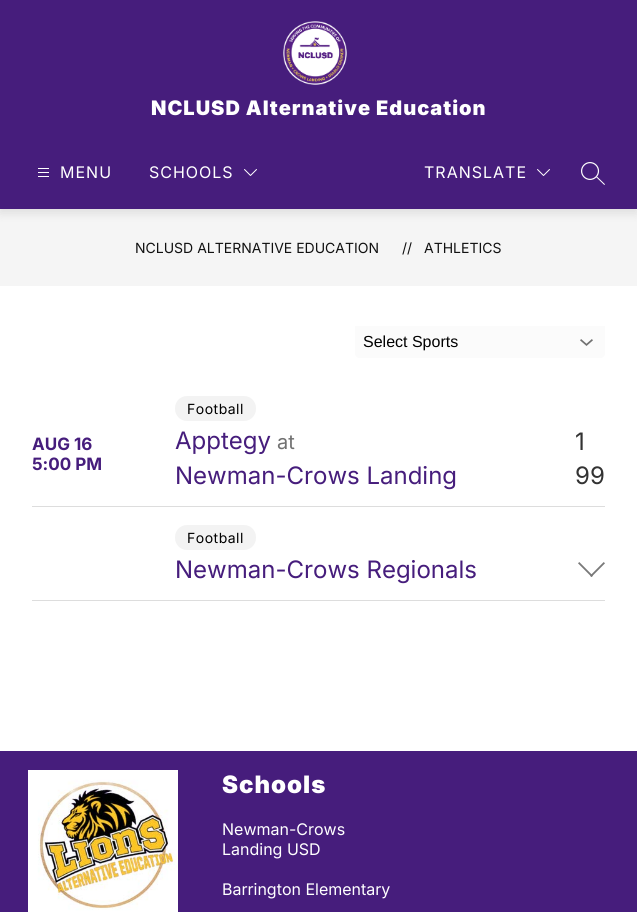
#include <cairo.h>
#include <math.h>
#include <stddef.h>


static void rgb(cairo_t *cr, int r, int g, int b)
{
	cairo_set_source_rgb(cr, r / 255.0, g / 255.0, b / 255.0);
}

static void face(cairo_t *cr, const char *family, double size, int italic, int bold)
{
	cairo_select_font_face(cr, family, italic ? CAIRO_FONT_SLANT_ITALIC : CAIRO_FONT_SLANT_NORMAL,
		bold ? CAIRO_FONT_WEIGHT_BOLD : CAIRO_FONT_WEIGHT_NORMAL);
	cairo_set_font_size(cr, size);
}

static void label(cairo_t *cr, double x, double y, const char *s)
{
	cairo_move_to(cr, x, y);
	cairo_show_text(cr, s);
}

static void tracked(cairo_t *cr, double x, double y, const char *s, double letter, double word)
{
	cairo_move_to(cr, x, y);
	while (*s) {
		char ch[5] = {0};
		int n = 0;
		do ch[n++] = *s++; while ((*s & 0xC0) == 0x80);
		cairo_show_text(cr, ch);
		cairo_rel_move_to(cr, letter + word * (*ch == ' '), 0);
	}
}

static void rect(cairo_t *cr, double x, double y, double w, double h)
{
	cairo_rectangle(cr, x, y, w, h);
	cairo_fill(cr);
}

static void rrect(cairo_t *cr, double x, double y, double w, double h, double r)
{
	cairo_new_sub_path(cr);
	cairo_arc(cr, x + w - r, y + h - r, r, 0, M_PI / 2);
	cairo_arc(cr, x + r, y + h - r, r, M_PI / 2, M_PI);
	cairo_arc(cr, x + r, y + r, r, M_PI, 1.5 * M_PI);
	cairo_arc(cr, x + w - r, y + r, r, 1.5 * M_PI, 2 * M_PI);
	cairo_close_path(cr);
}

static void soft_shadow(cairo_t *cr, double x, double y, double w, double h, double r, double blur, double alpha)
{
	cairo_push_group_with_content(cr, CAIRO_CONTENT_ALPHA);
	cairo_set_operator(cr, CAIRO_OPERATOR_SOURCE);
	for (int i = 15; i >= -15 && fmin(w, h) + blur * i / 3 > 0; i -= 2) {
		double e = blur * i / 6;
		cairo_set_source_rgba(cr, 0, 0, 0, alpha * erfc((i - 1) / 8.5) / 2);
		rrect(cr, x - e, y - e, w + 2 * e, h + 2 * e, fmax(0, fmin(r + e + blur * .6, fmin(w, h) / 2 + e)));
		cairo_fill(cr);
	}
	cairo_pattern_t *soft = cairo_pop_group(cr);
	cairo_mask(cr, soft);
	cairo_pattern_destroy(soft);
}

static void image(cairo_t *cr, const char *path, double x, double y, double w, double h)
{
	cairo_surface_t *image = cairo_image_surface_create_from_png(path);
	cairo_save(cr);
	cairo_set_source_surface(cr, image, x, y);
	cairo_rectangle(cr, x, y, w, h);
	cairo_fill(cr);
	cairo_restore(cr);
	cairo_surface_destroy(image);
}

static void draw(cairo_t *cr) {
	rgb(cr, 255, 255, 255);
	cairo_paint(cr);
	rgb(cr, 245, 245, 245);
	rect(cr, 0, 209, 637, 77);
	rgb(cr, 0, 0, 0);
	soft_shadow(cr, 0, 4, 637, 209, 0, 5, 0.1);
	rgb(cr, 70, 29, 124);
	rect(cr, 0, 0, 637, 209);
	image(cr, "image0.png", 283, 21, 64, 64);
	face(cr, "Inter Black", 20, 0, 0);
	rgb(cr, 255, 255, 255);
	tracked(cr, 151, 115, "NCLUSD Alternative Education", 1, 0);
	image(cr, "image1.png", 38, 168, 11, 9);
	face(cr, "Inter", 16, 0, 0);
	tracked(cr, 60, 178, "MENU", 1, 0);
	tracked(cr, 149, 178, "SCHOOLS", 1, 0);
	image(cr, "image2.png", 244, 169, 13, 7);
	tracked(cr, 424, 178, "TRANSLATE", 1, 0);
	image(cr, "image2.png", 537, 169, 13, 7);
	image(cr, "image3.png", 581, 162, 24, 23);
	face(cr, "Inter", 14, 0, 0);
	rgb(cr, 17, 17, 17);
	label(cr, 135, 253, "NCLUSD ALTERNATIVE EDUCATION");
	label(cr, 402, 253, "//");
	label(cr, 424, 253, "ATHLETICS");
	rgb(cr, 251, 251, 251);
	cairo_new_path(cr);
	cairo_move_to(cr, 355, 326);
	cairo_line_to(cr, 605, 326);
	cairo_line_to(cr, 605, 354);
	cairo_curve_to(cr, 605, 356, 603, 358, 601, 358);
	cairo_line_to(cr, 359, 358);
	cairo_curve_to(cr, 357, 358, 355, 356, 355, 354);
	cairo_close_path(cr);
	cairo_fill(cr);
	image(cr, "image4.png", 580, 339, 13, 7);
	face(cr, "Liberation Sans", 16, 0, 0);
	rgb(cr, 0, 0, 0);
	label(cr, 363, 347, "Select Sports");
	rgb(cr, 221, 221, 221);
	rect(cr, 32, 506, 573, 1);
	face(cr, "Inter", 17, 0, 1);
	rgb(cr, 70, 29, 124);
	label(cr, 32, 450, "AUG 16");
	label(cr, 32, 470, "5:00 PM");
	rgb(cr, 243, 243, 243);
	rrect(cr, 175, 396, 81, 25, 12);
	cairo_fill(cr);
	face(cr, "Inter", 14, 0, 0);
	rgb(cr, 0, 0, 0);
	tracked(cr, 187, 414, "Football", 0.5, 0);
	face(cr, "Inter", 24, 0, 0);
	rgb(cr, 70, 29, 124);
	label(cr, 175, 449, "Apptegy");
	face(cr, "Inter", 20, 0, 0);
	rgb(cr, 113, 113, 113);
	label(cr, 277, 449, "at");
	face(cr, "Inter", 24, 0, 0);
	rgb(cr, 70, 29, 124);
	label(cr, 175, 484, "Newman-Crows Landing");
	rgb(cr, 51, 51, 51);
	label(cr, 575, 450, "1");
	label(cr, 575, 484, "99");
	rgb(cr, 221, 221, 221);
	rect(cr, 32, 600, 573, 1);
	rgb(cr, 243, 243, 243);
	rrect(cr, 175, 525, 81, 25, 12);
	cairo_fill(cr);
	face(cr, "Inter", 14, 0, 0);
	rgb(cr, 0, 0, 0);
	tracked(cr, 187, 543, "Football", 0.5, 0);
	image(cr, "image5.png", 578, 562, 27, 15);
	face(cr, "Inter", 24, 0, 0);
	rgb(cr, 70, 29, 124);
	label(cr, 175, 578, "Newman-Crows Regionals");
	rect(cr, 0, 751, 637, 161);
	image(cr, "image6.png", 28, 770, 150, 142);
	face(cr, "Inter Black", 24, 0, 0);
	rgb(cr, 255, 255, 255);
	tracked(cr, 222, 793, "Schools", 1, 0);
	face(cr, "Inter", 16, 0, 0);
	label(cr, 222, 835, "Newman-Crows");
	label(cr, 222, 855, "Landing USD");
	label(cr, 222, 895, "Barrington Elementary");
}

int main(void) {
	cairo_surface_t *surface = cairo_image_surface_create(CAIRO_FORMAT_RGB24, 637, 912);
	cairo_t *cr = cairo_create(surface);
	cairo_font_options_t *options = cairo_font_options_create();
	cairo_font_options_set_hint_metrics(options, CAIRO_HINT_METRICS_OFF);
	cairo_font_options_set_hint_style(options, CAIRO_HINT_STYLE_NONE);
	cairo_set_font_options(cr, options);
	cairo_set_miter_limit(cr, 4);
	draw(cr);
	cairo_surface_write_to_png(surface, "render.png");
	cairo_font_options_destroy(options);
	cairo_destroy(cr);
	cairo_surface_destroy(surface);
	return 0;
}
